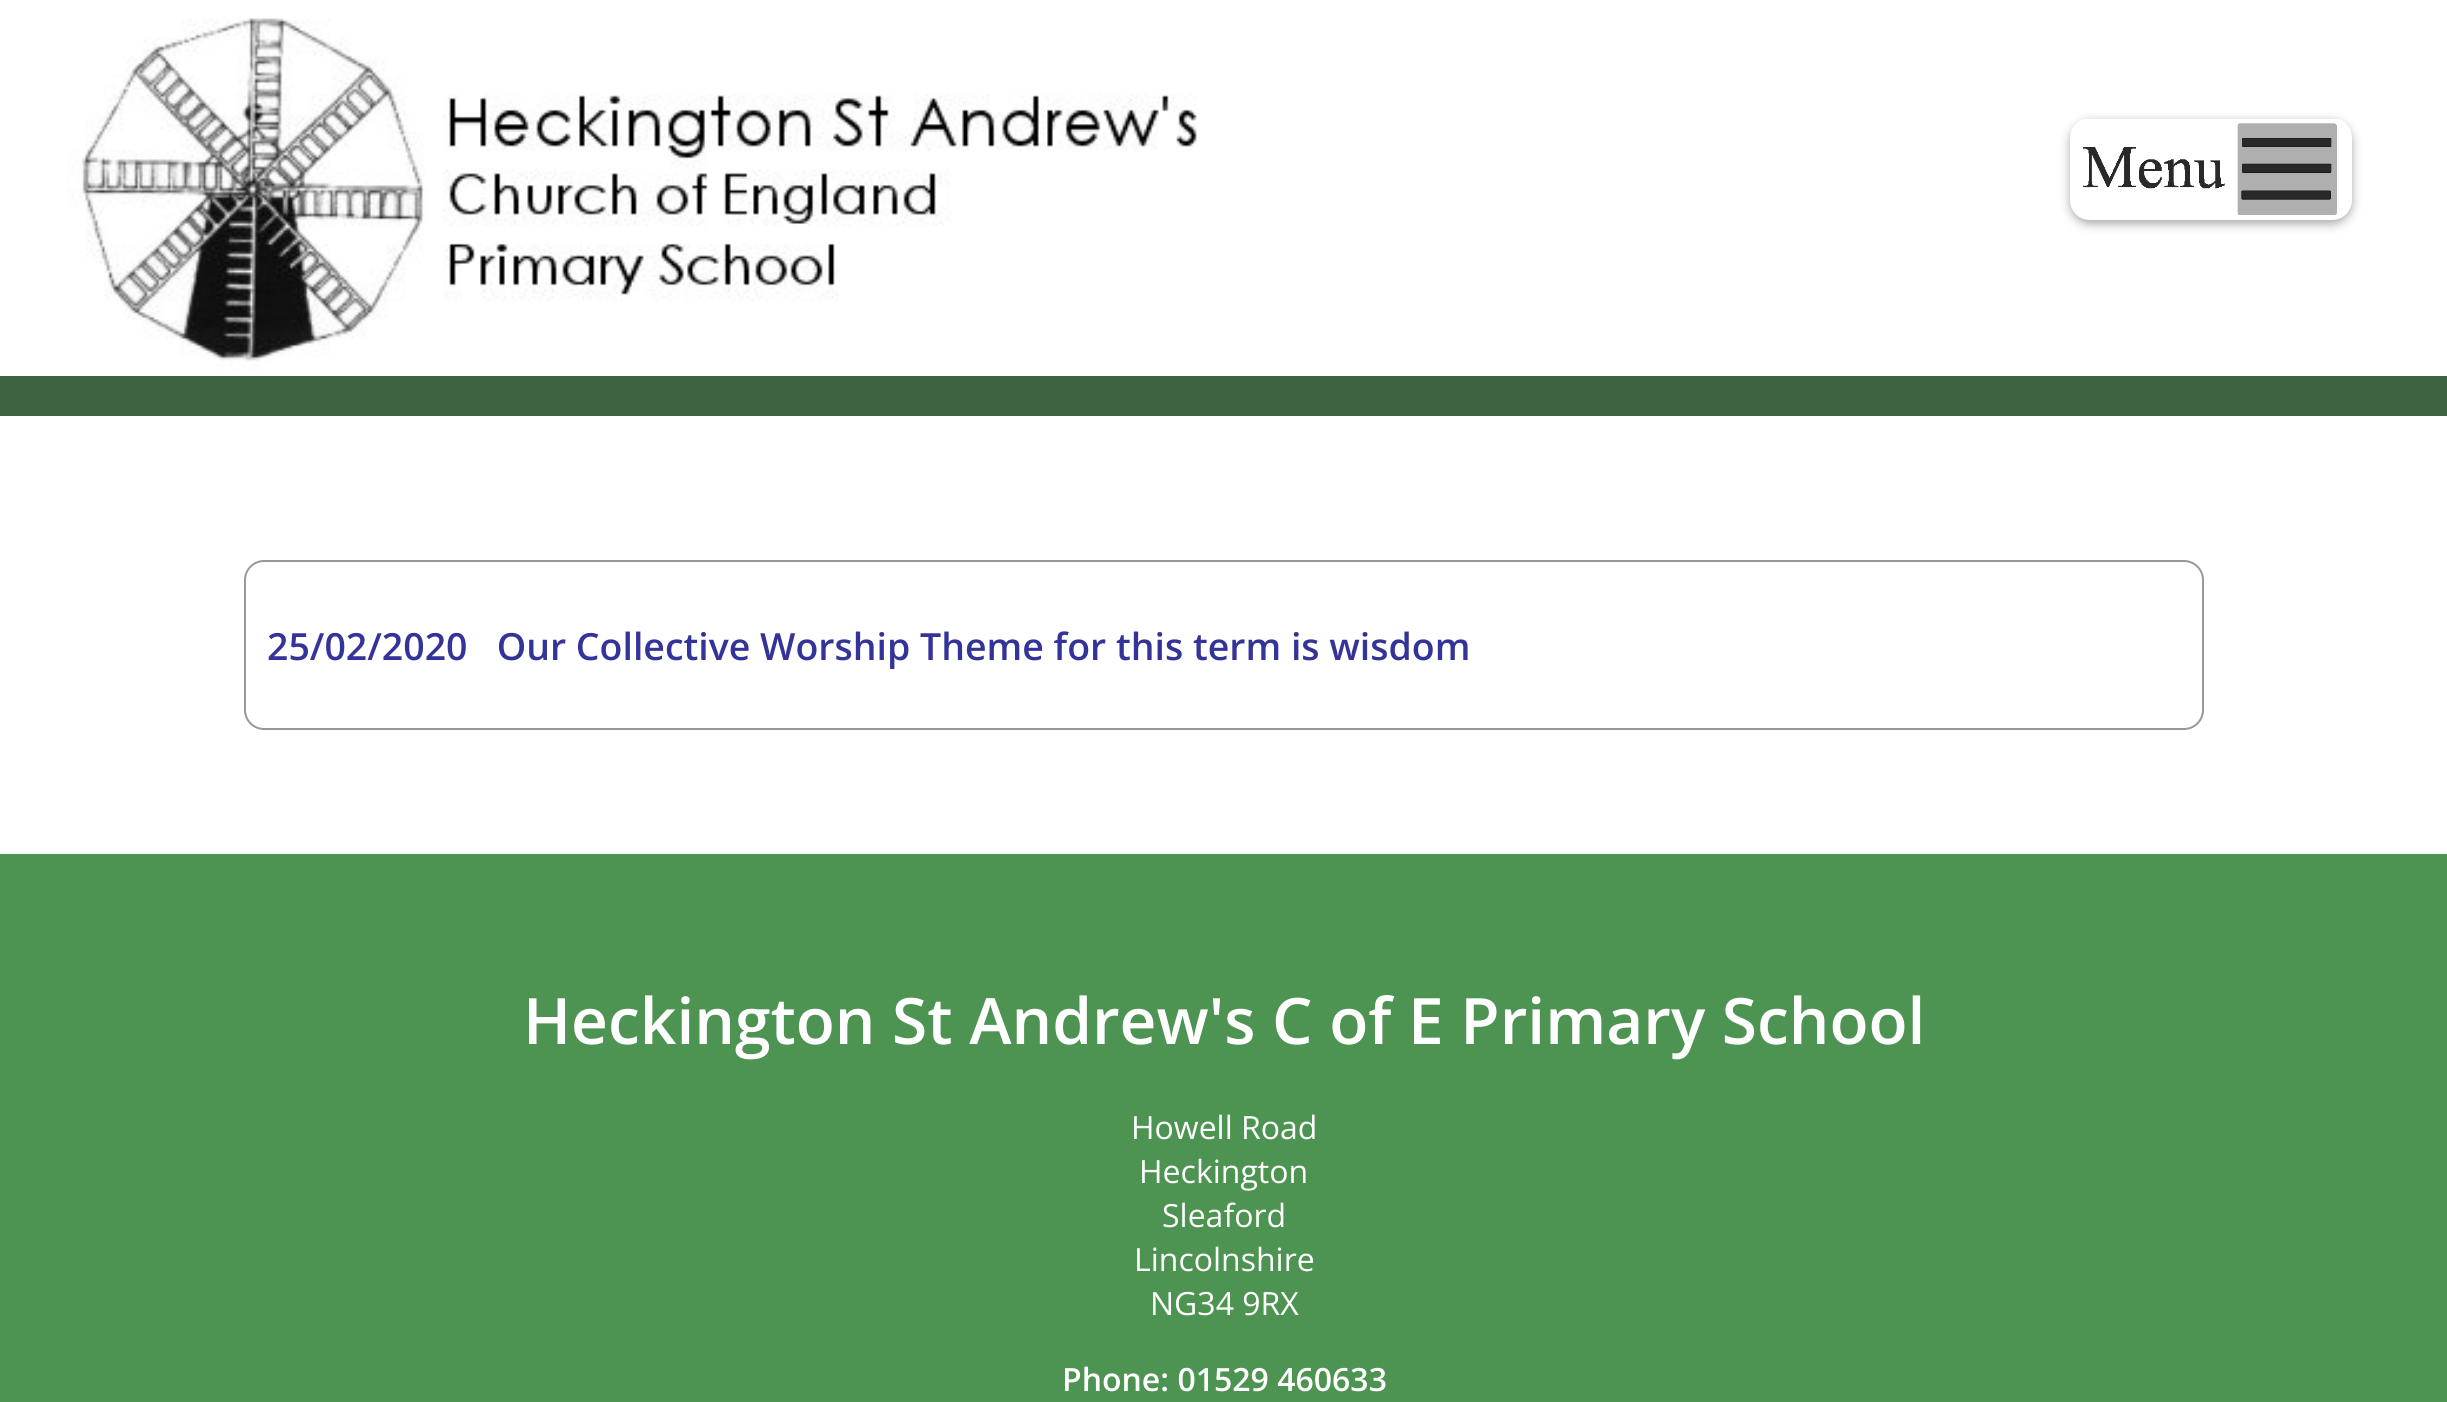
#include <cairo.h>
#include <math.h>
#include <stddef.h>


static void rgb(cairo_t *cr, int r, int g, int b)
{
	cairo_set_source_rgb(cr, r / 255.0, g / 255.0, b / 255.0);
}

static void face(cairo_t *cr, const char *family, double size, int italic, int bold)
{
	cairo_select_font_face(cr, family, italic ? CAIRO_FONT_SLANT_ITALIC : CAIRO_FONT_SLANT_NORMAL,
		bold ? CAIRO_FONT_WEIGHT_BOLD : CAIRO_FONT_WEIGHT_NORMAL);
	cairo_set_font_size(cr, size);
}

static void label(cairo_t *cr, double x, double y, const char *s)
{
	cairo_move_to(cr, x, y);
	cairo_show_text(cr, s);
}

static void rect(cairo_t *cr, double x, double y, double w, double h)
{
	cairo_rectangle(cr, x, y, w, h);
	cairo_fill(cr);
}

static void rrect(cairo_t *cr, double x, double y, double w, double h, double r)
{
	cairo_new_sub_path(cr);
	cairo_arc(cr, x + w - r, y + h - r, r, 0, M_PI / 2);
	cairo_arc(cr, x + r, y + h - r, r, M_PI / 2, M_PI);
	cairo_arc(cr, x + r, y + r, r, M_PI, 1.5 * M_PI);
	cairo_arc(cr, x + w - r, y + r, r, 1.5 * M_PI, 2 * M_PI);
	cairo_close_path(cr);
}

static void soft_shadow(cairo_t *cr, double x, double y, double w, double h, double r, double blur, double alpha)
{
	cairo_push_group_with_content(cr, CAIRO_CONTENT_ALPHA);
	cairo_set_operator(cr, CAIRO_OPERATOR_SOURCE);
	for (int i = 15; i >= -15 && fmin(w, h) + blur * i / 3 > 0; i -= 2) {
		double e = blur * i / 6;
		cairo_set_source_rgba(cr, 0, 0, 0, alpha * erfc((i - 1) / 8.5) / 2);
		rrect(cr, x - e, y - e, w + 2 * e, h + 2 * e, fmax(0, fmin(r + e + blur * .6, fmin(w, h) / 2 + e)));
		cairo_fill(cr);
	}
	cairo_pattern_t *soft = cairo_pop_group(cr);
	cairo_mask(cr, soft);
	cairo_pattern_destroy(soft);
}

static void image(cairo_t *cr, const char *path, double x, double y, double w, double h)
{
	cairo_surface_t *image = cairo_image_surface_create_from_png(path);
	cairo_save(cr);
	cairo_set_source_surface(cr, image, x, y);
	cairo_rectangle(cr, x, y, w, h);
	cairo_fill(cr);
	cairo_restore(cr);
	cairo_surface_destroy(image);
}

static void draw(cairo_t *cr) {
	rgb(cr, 255, 255, 255);
	cairo_paint(cr);
	image(cr, "image0.png", 67, 18, 1130, 353);
	rgb(cr, 170, 170, 170);
	soft_shadow(cr, 2070, 122, 282, 102, 20, 5, 1);
	image(cr, "image1.png", 2070, 119, 282, 101);
	rgb(cr, 61, 99, 65);
	rect(cr, 0, 376, 2447, 40);
	rrect(cr, 245, 561, 1958, 168, 19);
	rgb(cr, 153, 153, 153);
	cairo_stroke(cr);
	face(cr, "Open Sans SemiBold", 37.45, 0, 0);
	rgb(cr, 51, 51, 153);
	label(cr, 267, 660, "25/02/2020   Our Collective Worship Theme for this term is wisdom");
	rgb(cr, 77, 147, 81);
	rect(cr, 0, 854, 2447, 548);
	face(cr, "Open Sans SemiBold", 64, 0, 0);
	rgb(cr, 255, 255, 255);
	label(cr, 523, 1044, "Heckington St Andrew's C of E Primary School");
	face(cr, "Open Sans", 32, 0, 0);
	label(cr, 1131, 1139, "Howell Road");
	label(cr, 1139, 1183, "Heckington");
	label(cr, 1162, 1227, "Sleaford");
	label(cr, 1134, 1271, "Lincolnshire");
	label(cr, 1150, 1315, "NG34 9RX");
	face(cr, "Open Sans SemiBold", 32, 0, 0);
	label(cr, 1062, 1391, "Phone: 01529 460633");
}

int main(void) {
	cairo_surface_t *surface = cairo_image_surface_create(CAIRO_FORMAT_RGB24, 2447, 1402);
	cairo_t *cr = cairo_create(surface);
	cairo_font_options_t *options = cairo_font_options_create();
	cairo_font_options_set_hint_metrics(options, CAIRO_HINT_METRICS_OFF);
	cairo_font_options_set_hint_style(options, CAIRO_HINT_STYLE_NONE);
	cairo_set_font_options(cr, options);
	cairo_set_miter_limit(cr, 4);
	draw(cr);
	cairo_surface_write_to_png(surface, "render.png");
	cairo_font_options_destroy(options);
	cairo_destroy(cr);
	cairo_surface_destroy(surface);
	return 0;
}
